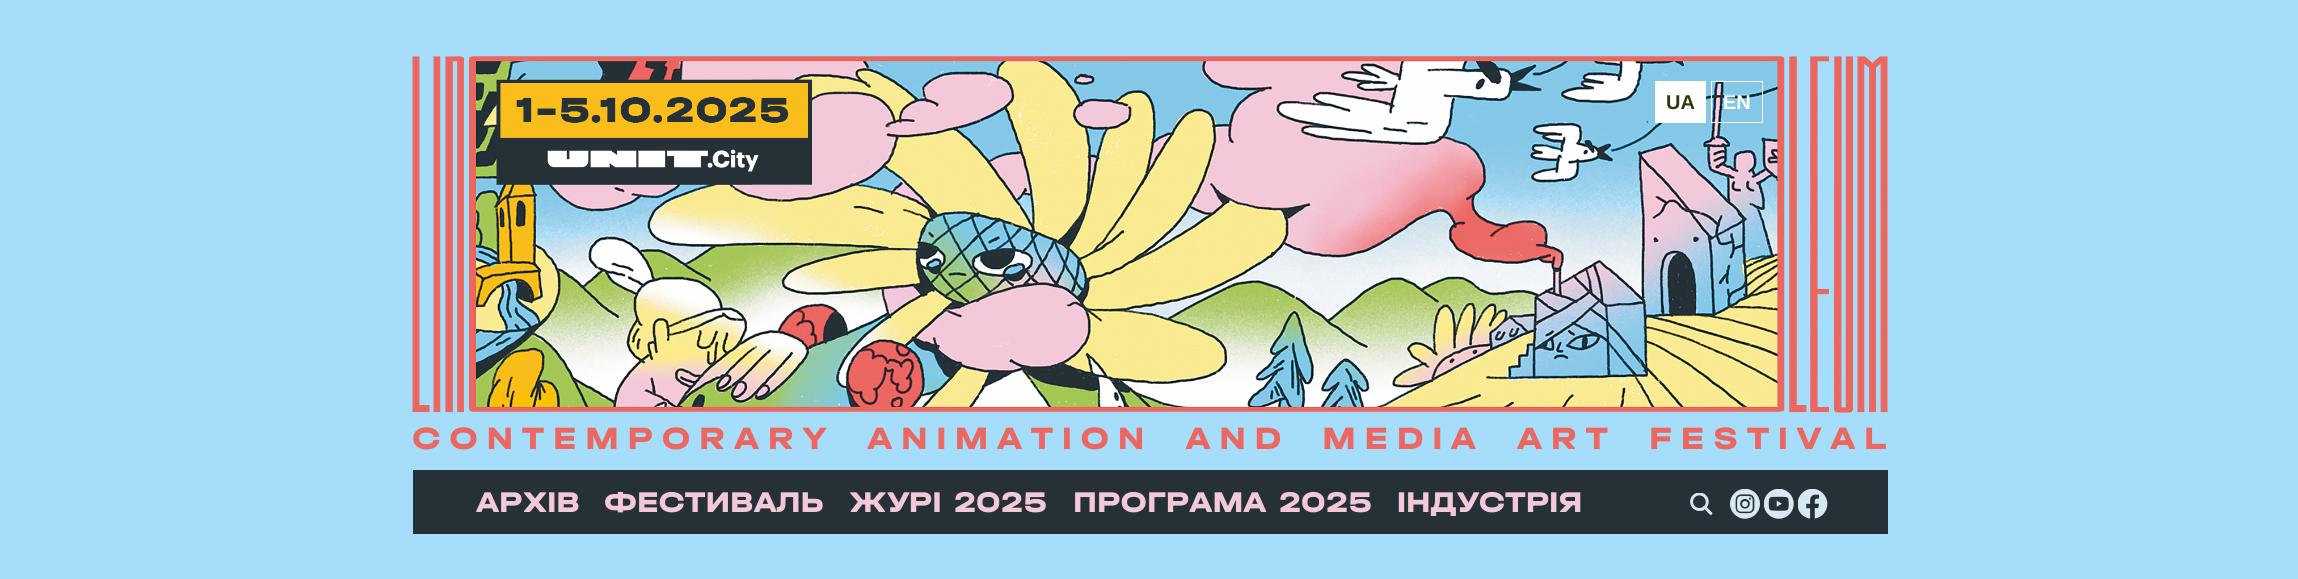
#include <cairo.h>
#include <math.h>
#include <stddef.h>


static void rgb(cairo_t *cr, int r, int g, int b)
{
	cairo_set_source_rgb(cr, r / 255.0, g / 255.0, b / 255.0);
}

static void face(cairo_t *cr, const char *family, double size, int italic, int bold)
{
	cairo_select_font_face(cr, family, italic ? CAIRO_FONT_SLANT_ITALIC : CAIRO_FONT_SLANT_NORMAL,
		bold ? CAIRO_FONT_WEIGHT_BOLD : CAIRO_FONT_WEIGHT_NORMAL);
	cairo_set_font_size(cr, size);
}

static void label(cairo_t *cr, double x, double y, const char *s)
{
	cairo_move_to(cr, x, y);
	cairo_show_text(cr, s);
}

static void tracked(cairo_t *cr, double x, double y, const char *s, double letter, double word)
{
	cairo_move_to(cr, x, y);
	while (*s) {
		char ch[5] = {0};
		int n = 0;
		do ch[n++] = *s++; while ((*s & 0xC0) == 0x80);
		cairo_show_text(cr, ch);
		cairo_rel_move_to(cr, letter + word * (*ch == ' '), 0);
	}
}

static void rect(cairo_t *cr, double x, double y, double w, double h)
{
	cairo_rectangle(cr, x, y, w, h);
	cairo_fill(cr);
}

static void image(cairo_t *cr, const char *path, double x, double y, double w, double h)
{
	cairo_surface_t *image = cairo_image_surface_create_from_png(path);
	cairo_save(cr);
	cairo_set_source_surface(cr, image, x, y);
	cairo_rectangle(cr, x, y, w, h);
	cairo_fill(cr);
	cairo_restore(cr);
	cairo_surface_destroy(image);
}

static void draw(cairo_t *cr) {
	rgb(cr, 166, 221, 250);
	cairo_paint(cr);
	image(cr, "image0.png", 412, 56, 1476, 357);
	rgb(cr, 255, 255, 255);
	rect(cr, 1655, 81, 51, 42);
	face(cr, "Liberation Sans", 20, 0, 1);
	rgb(cr, 54, 53, 11);
	label(cr, 1666, 109, "UA");
	cairo_rectangle(cr, 1711.5, 81.5, 51, 41);
	rgb(cr, 255, 255, 255);
	cairo_set_line_width(cr, 1);
	cairo_stroke(cr);
	label(cr, 1723, 109, "EN");
	face(cr, "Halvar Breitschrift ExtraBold", 32.5, 0, 0);
	rgb(cr, 235, 103, 96);
	tracked(cr, 412, 449, "CONTEMPORARY ANIMATION AND MEDIA ART FESTIVAL", 8.75, 10.5);
	rgb(cr, 37, 49, 54);
	rect(cr, 413, 470, 1475, 64);
	face(cr, "Halvar Breitschrift ExtraBold", 30, 0, 0);
	rgb(cr, 243, 201, 217);
	label(cr, 476, 512, "АРХІВ");
	label(cr, 604, 512, "ФЕСТИВАЛЬ");
	label(cr, 849, 512, "ЖУРІ 2025");
	label(cr, 1073, 512, "ПРОГРАМА 2025");
	label(cr, 1397, 512, "ІНДУСТРІЯ");
	image(cr, "image1.png", 1690, 493, 23, 22);
	image(cr, "image2.png", 1730, 489, 30, 30);
	image(cr, "image3.png", 1764, 489, 30, 30);
	image(cr, "image4.png", 1798, 489, 30, 30);
}

int main(void) {
	cairo_surface_t *surface = cairo_image_surface_create(CAIRO_FORMAT_RGB24, 2298, 579);
	cairo_t *cr = cairo_create(surface);
	cairo_font_options_t *options = cairo_font_options_create();
	cairo_font_options_set_hint_metrics(options, CAIRO_HINT_METRICS_OFF);
	cairo_font_options_set_hint_style(options, CAIRO_HINT_STYLE_NONE);
	cairo_set_font_options(cr, options);
	cairo_set_miter_limit(cr, 4);
	draw(cr);
	cairo_surface_write_to_png(surface, "render.png");
	cairo_font_options_destroy(options);
	cairo_destroy(cr);
	cairo_surface_destroy(surface);
	return 0;
}
